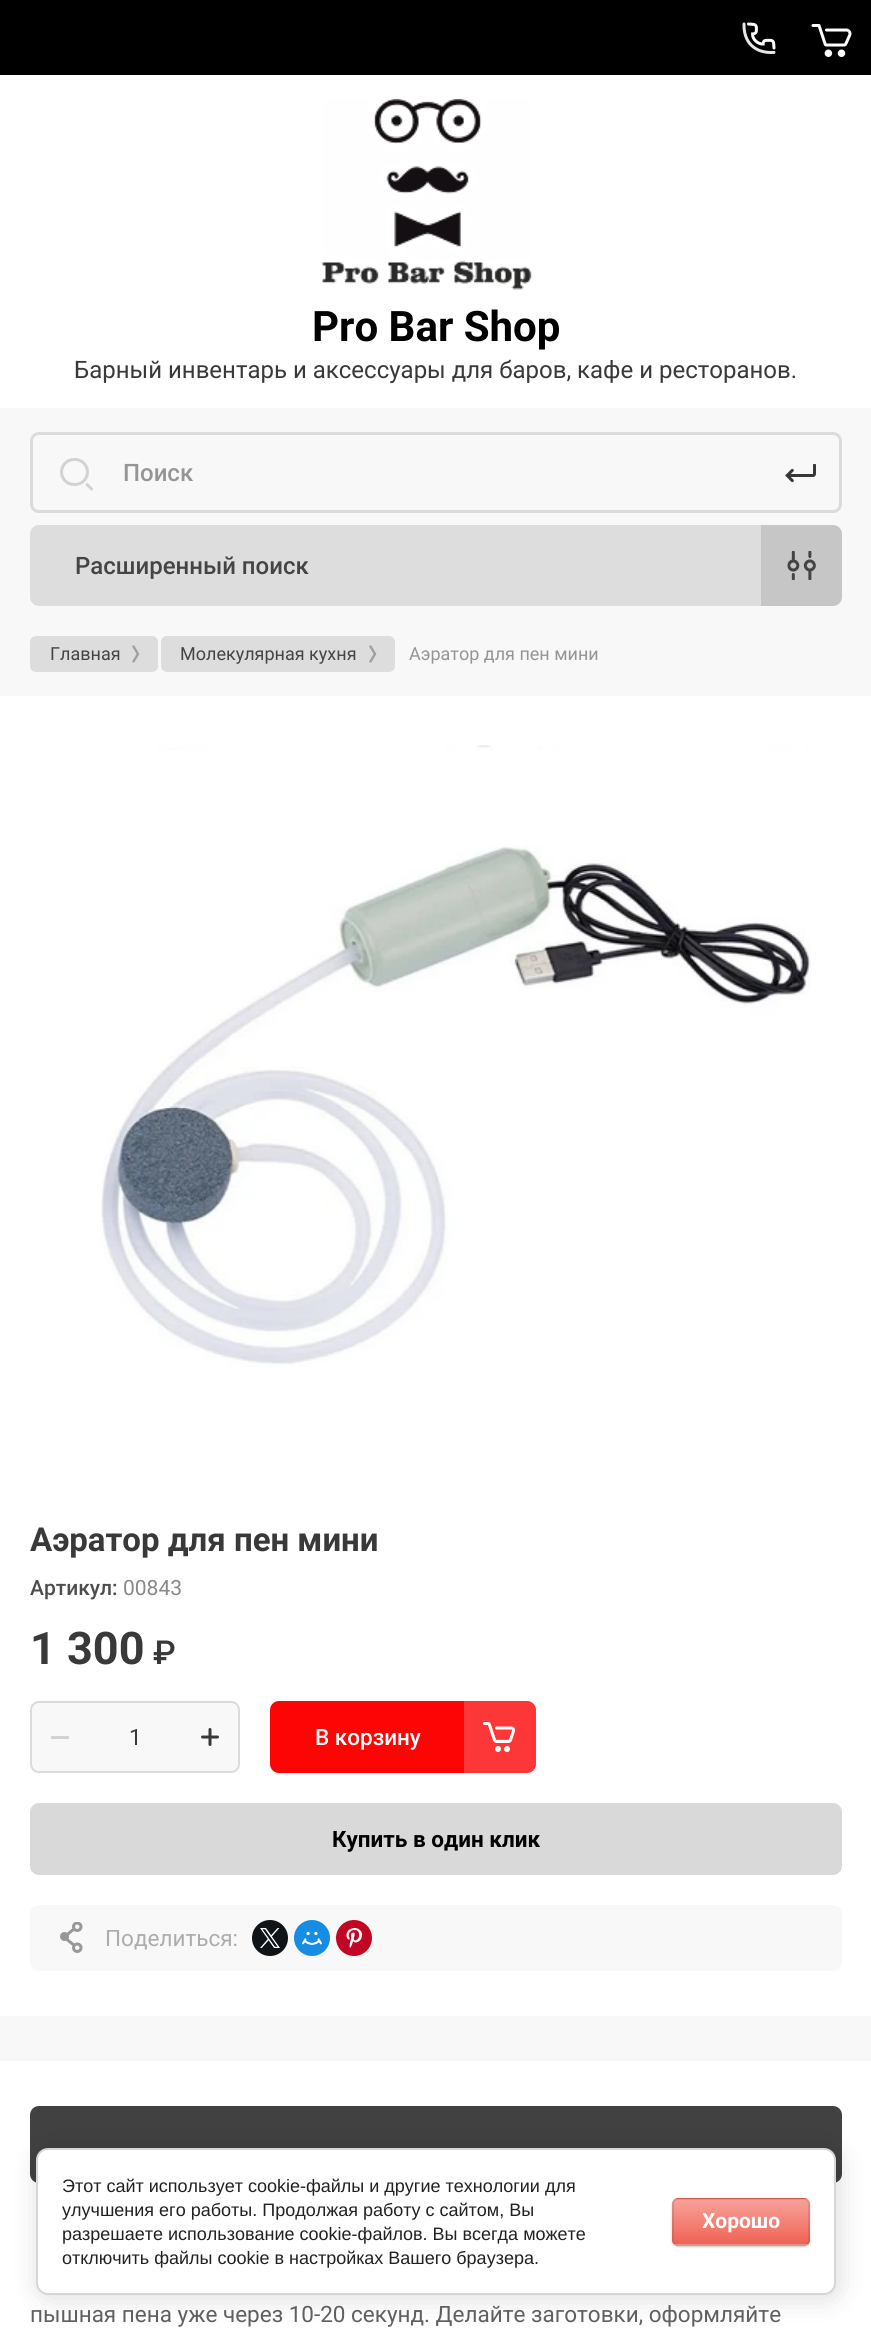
#include <cairo.h>
#include <math.h>
#include <stddef.h>


static void rgb(cairo_t *cr, int r, int g, int b)
{
	cairo_set_source_rgb(cr, r / 255.0, g / 255.0, b / 255.0);
}

static void face(cairo_t *cr, const char *family, double size, int italic, int bold)
{
	cairo_select_font_face(cr, family, italic ? CAIRO_FONT_SLANT_ITALIC : CAIRO_FONT_SLANT_NORMAL,
		bold ? CAIRO_FONT_WEIGHT_BOLD : CAIRO_FONT_WEIGHT_NORMAL);
	cairo_set_font_size(cr, size);
}

static void label(cairo_t *cr, double x, double y, const char *s)
{
	cairo_move_to(cr, x, y);
	cairo_show_text(cr, s);
}

static void rect(cairo_t *cr, double x, double y, double w, double h)
{
	cairo_rectangle(cr, x, y, w, h);
	cairo_fill(cr);
}

static void rrect(cairo_t *cr, double x, double y, double w, double h, double r)
{
	cairo_new_sub_path(cr);
	cairo_arc(cr, x + w - r, y + h - r, r, 0, M_PI / 2);
	cairo_arc(cr, x + r, y + h - r, r, M_PI / 2, M_PI);
	cairo_arc(cr, x + r, y + r, r, M_PI, 1.5 * M_PI);
	cairo_arc(cr, x + w - r, y + r, r, 1.5 * M_PI, 2 * M_PI);
	cairo_close_path(cr);
}

static void soft_shadow(cairo_t *cr, double x, double y, double w, double h, double r, double blur, double alpha)
{
	cairo_push_group_with_content(cr, CAIRO_CONTENT_ALPHA);
	cairo_set_operator(cr, CAIRO_OPERATOR_SOURCE);
	for (int i = 15; i >= -15 && fmin(w, h) + blur * i / 3 > 0; i -= 2) {
		double e = blur * i / 6;
		cairo_set_source_rgba(cr, 0, 0, 0, alpha * erfc((i - 1) / 8.5) / 2);
		rrect(cr, x - e, y - e, w + 2 * e, h + 2 * e, fmax(0, fmin(r + e + blur * .6, fmin(w, h) / 2 + e)));
		cairo_fill(cr);
	}
	cairo_pattern_t *soft = cairo_pop_group(cr);
	cairo_mask(cr, soft);
	cairo_pattern_destroy(soft);
}

static void image(cairo_t *cr, const char *path, double x, double y, double w, double h)
{
	cairo_surface_t *image = cairo_image_surface_create_from_png(path);
	cairo_save(cr);
	cairo_set_source_surface(cr, image, x, y);
	cairo_rectangle(cr, x, y, w, h);
	cairo_fill(cr);
	cairo_restore(cr);
	cairo_surface_destroy(image);
}

static void draw(cairo_t *cr) {
	cairo_pattern_t *gradient;
	rgb(cr, 248, 248, 248);
	cairo_paint(cr);
	rgb(cr, 0, 0, 0);
	rect(cr, 0, 0, 871, 75);
	image(cr, "image0.png", 742, 22, 34, 32);
	image(cr, "image1.png", 811, 24, 41, 33);
	rgb(cr, 255, 255, 255);
	rect(cr, 0, 75, 871, 333);
	image(cr, "image2.png", 322, 99, 210, 191);
	face(cr, "Roboto", 42, 0, 1);
	rgb(cr, 0, 0, 0);
	label(cr, 312, 341, "Pro Bar Shop");
	face(cr, "Roboto", 24, 0, 0);
	rgb(cr, 57, 57, 57);
	label(cr, 74, 378, "Барный инвентарь и аксессуары для баров, кафе и ресторанов.");
	rrect(cr, 31.5, 433.5, 809, 78, 7.5);
	rgb(cr, 219, 219, 219);
	cairo_set_line_width(cr, 3);
	cairo_stroke(cr);
	rrect(cr, 61.5, 459.5, 26, 25, 12.5);
	rgb(cr, 210, 210, 210);
	cairo_stroke(cr);
	cairo_new_path(cr);
	cairo_move_to(cr, 87, 484.5);
	cairo_line_to(cr, 91.5, 489);
	cairo_set_line_cap(cr, CAIRO_LINE_CAP_ROUND);
	cairo_stroke(cr);
	face(cr, "Roboto Medium", 24, 0, 0);
	rgb(cr, 149, 149, 149);
	label(cr, 123, 481, "Поиск");
	image(cr, "image3.png", 785, 464, 31, 19);
	rgb(cr, 221, 221, 221);
	rrect(cr, 30, 525, 812, 81, 9);
	cairo_fill(cr);
	rgb(cr, 68, 68, 68);
	label(cr, 75, 574, "Расширенный поиск");
	cairo_set_source_rgba(cr, 0.267, 0.267, 0.267, 0.15);
	cairo_new_path(cr);
	cairo_move_to(cr, 761, 525);
	cairo_line_to(cr, 833, 525);
	cairo_curve_to(cr, 838, 525, 842, 529, 842, 534);
	cairo_line_to(cr, 842, 597);
	cairo_curve_to(cr, 842, 602, 838, 606, 833, 606);
	cairo_line_to(cr, 761, 606);
	cairo_close_path(cr);
	cairo_fill(cr);
	image(cr, "image4.png", 787, 551, 29, 30);
	rgb(cr, 221, 221, 221);
	rrect(cr, 30, 636, 128, 36, 6);
	cairo_fill(cr);
	face(cr, "Roboto", 18, 0, 0);
	rgb(cr, 68, 68, 68);
	label(cr, 50, 660, "Главная");
	image(cr, "image5.png", 132, 645, 8, 18);
	rgb(cr, 221, 221, 221);
	rrect(cr, 161, 636, 234, 36, 6);
	cairo_fill(cr);
	rgb(cr, 68, 68, 68);
	label(cr, 180, 660, "Молекулярная кухня");
	image(cr, "image5.png", 369, 645, 8, 18);
	rgb(cr, 149, 149, 149);
	label(cr, 409, 660, "Аэратор для пен мини");
	rgb(cr, 255, 255, 255);
	rect(cr, 0, 696, 871, 1320);
	image(cr, "image6.png", 101, 745, 710, 622);
	face(cr, "Roboto", 33, 0, 1);
	rgb(cr, 57, 57, 57);
	label(cr, 30, 1551, "Аэратор для пен мини");
	face(cr, "Roboto Medium", 21, 0, 0);
	rgb(cr, 77, 77, 77);
	label(cr, 30, 1595, "Артикул:");
	face(cr, "Roboto", 21, 0, 0);
	rgb(cr, 136, 136, 136);
	label(cr, 123, 1595, "00843");
	face(cr, "Roboto", 45, 0, 1);
	rgb(cr, 57, 57, 57);
	label(cr, 30, 1664, "1 300");
	face(cr, "Roboto Medium", 33, 0, 0);
	label(cr, 153, 1664, "₽");
	rgb(cr, 248, 248, 248);
	rrect(cr, 30, 1701, 210, 72, 9);
	cairo_fill(cr);
	rrect(cr, 31, 1702, 208, 70, 8);
	cairo_set_source_rgba(cr, 0.22, 0.22, 0.22, 0.15);
	cairo_set_line_width(cr, 2);
	cairo_set_line_cap(cr, CAIRO_LINE_CAP_BUTT);
	cairo_stroke(cr);
	rgb(cr, 210, 210, 210);
	rect(cr, 51, 1736, 18, 3);
	face(cr, "Roboto", 22.5, 0, 0);
	rgb(cr, 57, 57, 57);
	label(cr, 129, 1745, "1");
	image(cr, "image7.png", 201, 1728, 18, 18);
	rgb(cr, 253, 5, 5);
	rrect(cr, 270, 1701, 266, 72, 9);
	cairo_fill(cr);
	face(cr, "Roboto Medium", 22.5, 0, 0);
	rgb(cr, 255, 255, 255);
	label(cr, 315, 1745, "В корзину");
	cairo_set_source_rgba(cr, 1, 1, 1, 0.2);
	cairo_new_path(cr);
	cairo_move_to(cr, 464, 1701);
	cairo_line_to(cr, 527, 1701);
	cairo_curve_to(cr, 532, 1701, 536, 1705, 536, 1710);
	cairo_line_to(cr, 536, 1764);
	cairo_curve_to(cr, 536, 1769, 532, 1773, 527, 1773);
	cairo_line_to(cr, 464, 1773);
	cairo_close_path(cr);
	cairo_fill(cr);
	image(cr, "image8.png", 483, 1722, 33, 30);
	rgb(cr, 217, 217, 217);
	rrect(cr, 30, 1803, 812, 72, 9);
	cairo_fill(cr);
	face(cr, "Roboto", 22.5, 0, 1);
	rgb(cr, 0, 0, 0);
	label(cr, 332, 1847, "Купить в один клик");
	rgb(cr, 248, 248, 248);
	rrect(cr, 30, 1905, 812, 66, 9);
	cairo_fill(cr);
	image(cr, "image9.png", 60, 1922, 23, 31);
	face(cr, "Roboto", 22.5, 0, 0);
	rgb(cr, 172, 172, 172);
	label(cr, 105, 1946, "Поделиться:");
	rgb(cr, 15, 20, 25);
	cairo_new_path(cr);
	cairo_arc(cr, 270, 1938, 18, 0, 2 * M_PI);
	cairo_fill(cr);
	image(cr, "image10.png", 260, 1928, 20, 20);
	rgb(cr, 22, 141, 226);
	cairo_arc(cr, 312, 1938, 18, 0, 2 * M_PI);
	cairo_fill(cr);
	image(cr, "image11.png", 302, 1931, 20, 14);
	rgb(cr, 194, 7, 36);
	cairo_arc(cr, 354, 1938, 18, 0, 2 * M_PI);
	cairo_fill(cr);
	image(cr, "image12.png", 346, 1928, 16, 20);
	rgb(cr, 255, 255, 255);
	rect(cr, 0, 2061, 871, 270);
	rgb(cr, 65, 65, 65);
	rrect(cr, 30, 2106, 812, 77, 9);
	cairo_fill(cr);
	rgb(cr, 97, 97, 97);
	label(cr, 30, 2322, "пышная пена уже через 10-20 секунд. Делайте заготовки, оформляйте");
	rgb(cr, 0, 0, 0);
	soft_shadow(cr, 39, 2151, 800, 147, 12, 13.5, 0.14);
	rgb(cr, 255, 255, 255);
	rrect(cr, 37, 2149, 798, 145, 11);
	cairo_fill_preserve(cr);
	rgb(cr, 214, 214, 214);
	cairo_stroke(cr);
	face(cr, "Liberation Sans", 18, 0, 0);
	rgb(cr, 33, 33, 33);
	label(cr, 62, 2192, "Этот сайт использует cookie-файлы и другие технологии для");
	label(cr, 62, 2216, "улучшения его работы. Продолжая работу с сайтом, Вы");
	label(cr, 62, 2240, "разрешаете использование cookie-файлов. Вы всегда можете");
	label(cr, 62, 2264, "отключить файлы cookie в настройках Вашего браузера.");
	rgb(cr, 0, 0, 0);
	soft_shadow(cr, 672, 2199, 138, 48, 6, 1, 0.2);
	cairo_save(cr);
	rrect(cr, 672, 2198, 138, 48, 6);
	cairo_clip(cr);
	gradient = cairo_pattern_create_linear(741, 2154, 741, 2199);
	cairo_pattern_add_color_stop_rgba(gradient, 0, 0.965, 0.639, 0.604, 1);
	cairo_pattern_add_color_stop_rgba(gradient, 1, 0.941, 0.388, 0.329, 1);
	cairo_set_source(cr, gradient);
	cairo_pattern_destroy(gradient);
	rect(cr, 672, 2198, 138, 1);
	gradient = cairo_pattern_create_linear(741, 2199, 741, 2244);
	cairo_pattern_add_color_stop_rgba(gradient, 0, 0.965, 0.639, 0.604, 1);
	cairo_pattern_add_color_stop_rgba(gradient, 1, 0.941, 0.388, 0.329, 1);
	cairo_set_source(cr, gradient);
	cairo_pattern_destroy(gradient);
	rect(cr, 672, 2199, 138, 45);
	gradient = cairo_pattern_create_linear(741, 2244, 741, 2289);
	cairo_pattern_add_color_stop_rgba(gradient, 0, 0.965, 0.639, 0.604, 1);
	cairo_pattern_add_color_stop_rgba(gradient, 1, 0.941, 0.388, 0.329, 1);
	cairo_set_source(cr, gradient);
	cairo_pattern_destroy(gradient);
	rect(cr, 672, 2244, 138, 2);
	cairo_restore(cr);
	rrect(cr, 673, 2199, 136, 46, 5);
	cairo_set_source_rgba(cr, 0, 0, 0, 0.1);
	cairo_stroke(cr);
	face(cr, "Roboto", 21, 0, 1);
	rgb(cr, 255, 255, 255);
	label(cr, 702, 2228, "Хорошо");
}

int main(void) {
	cairo_surface_t *surface = cairo_image_surface_create(CAIRO_FORMAT_RGB24, 871, 2331);
	cairo_t *cr = cairo_create(surface);
	cairo_font_options_t *options = cairo_font_options_create();
	cairo_font_options_set_hint_metrics(options, CAIRO_HINT_METRICS_OFF);
	cairo_font_options_set_hint_style(options, CAIRO_HINT_STYLE_NONE);
	cairo_set_font_options(cr, options);
	cairo_set_miter_limit(cr, 4);
	draw(cr);
	cairo_surface_write_to_png(surface, "render.png");
	cairo_font_options_destroy(options);
	cairo_destroy(cr);
	cairo_surface_destroy(surface);
	return 0;
}
